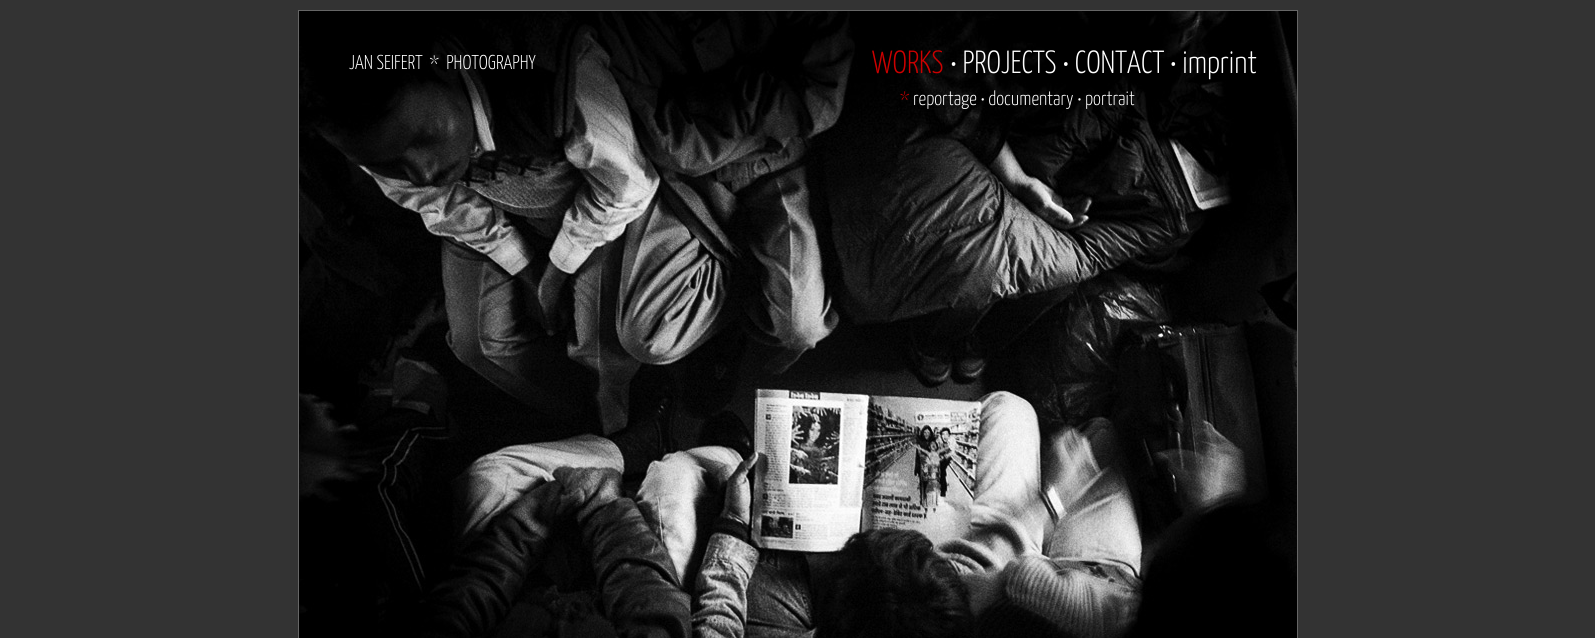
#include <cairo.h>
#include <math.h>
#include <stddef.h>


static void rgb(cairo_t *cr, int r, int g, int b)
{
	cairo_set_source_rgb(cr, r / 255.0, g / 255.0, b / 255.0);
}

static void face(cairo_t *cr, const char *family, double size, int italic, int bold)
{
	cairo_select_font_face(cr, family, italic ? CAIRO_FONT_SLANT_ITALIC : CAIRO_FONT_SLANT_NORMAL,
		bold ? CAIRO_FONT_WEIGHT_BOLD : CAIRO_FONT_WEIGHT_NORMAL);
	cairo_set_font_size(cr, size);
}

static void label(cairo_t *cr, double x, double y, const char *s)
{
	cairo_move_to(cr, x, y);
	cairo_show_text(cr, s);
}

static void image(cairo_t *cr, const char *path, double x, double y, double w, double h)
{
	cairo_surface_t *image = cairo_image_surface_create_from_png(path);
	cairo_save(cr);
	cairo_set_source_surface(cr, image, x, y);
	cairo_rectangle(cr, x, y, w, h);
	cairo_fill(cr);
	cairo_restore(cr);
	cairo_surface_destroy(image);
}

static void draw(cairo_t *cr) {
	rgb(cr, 51, 51, 51);
	cairo_paint(cr);
	image(cr, "image0.png", 299, 11, 998, 627);
	cairo_rectangle(cr, 298.5, 10.5, 999, 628);
	rgb(cr, 102, 102, 102);
	cairo_set_line_width(cr, 1);
	cairo_stroke(cr);
	face(cr, "Yanone Kaffeesatz Light", 20, 0, 0);
	rgb(cr, 255, 255, 255);
	label(cr, 349, 69, "JAN SEIFERT  *  PHOTOGRAPHY");
	face(cr, "Yanone Kaffeesatz Light", 32, 0, 0);
	rgb(cr, 204, 0, 0);
	label(cr, 872, 73, "WORKS");
	rgb(cr, 255, 255, 255);
	label(cr, 950, 73, "• PROJECTS • CONTACT • imprint");
	face(cr, "Yanone Kaffeesatz Light", 20, 0, 0);
	rgb(cr, 204, 0, 0);
	label(cr, 900, 105, "*");
	rgb(cr, 255, 255, 255);
	label(cr, 913, 105, "reportage • documentary • portrait");
}

int main(void) {
	cairo_surface_t *surface = cairo_image_surface_create(CAIRO_FORMAT_RGB24, 1595, 638);
	cairo_t *cr = cairo_create(surface);
	cairo_font_options_t *options = cairo_font_options_create();
	cairo_font_options_set_hint_metrics(options, CAIRO_HINT_METRICS_OFF);
	cairo_font_options_set_hint_style(options, CAIRO_HINT_STYLE_NONE);
	cairo_set_font_options(cr, options);
	cairo_set_miter_limit(cr, 4);
	draw(cr);
	cairo_surface_write_to_png(surface, "render.png");
	cairo_font_options_destroy(options);
	cairo_destroy(cr);
	cairo_surface_destroy(surface);
	return 0;
}
